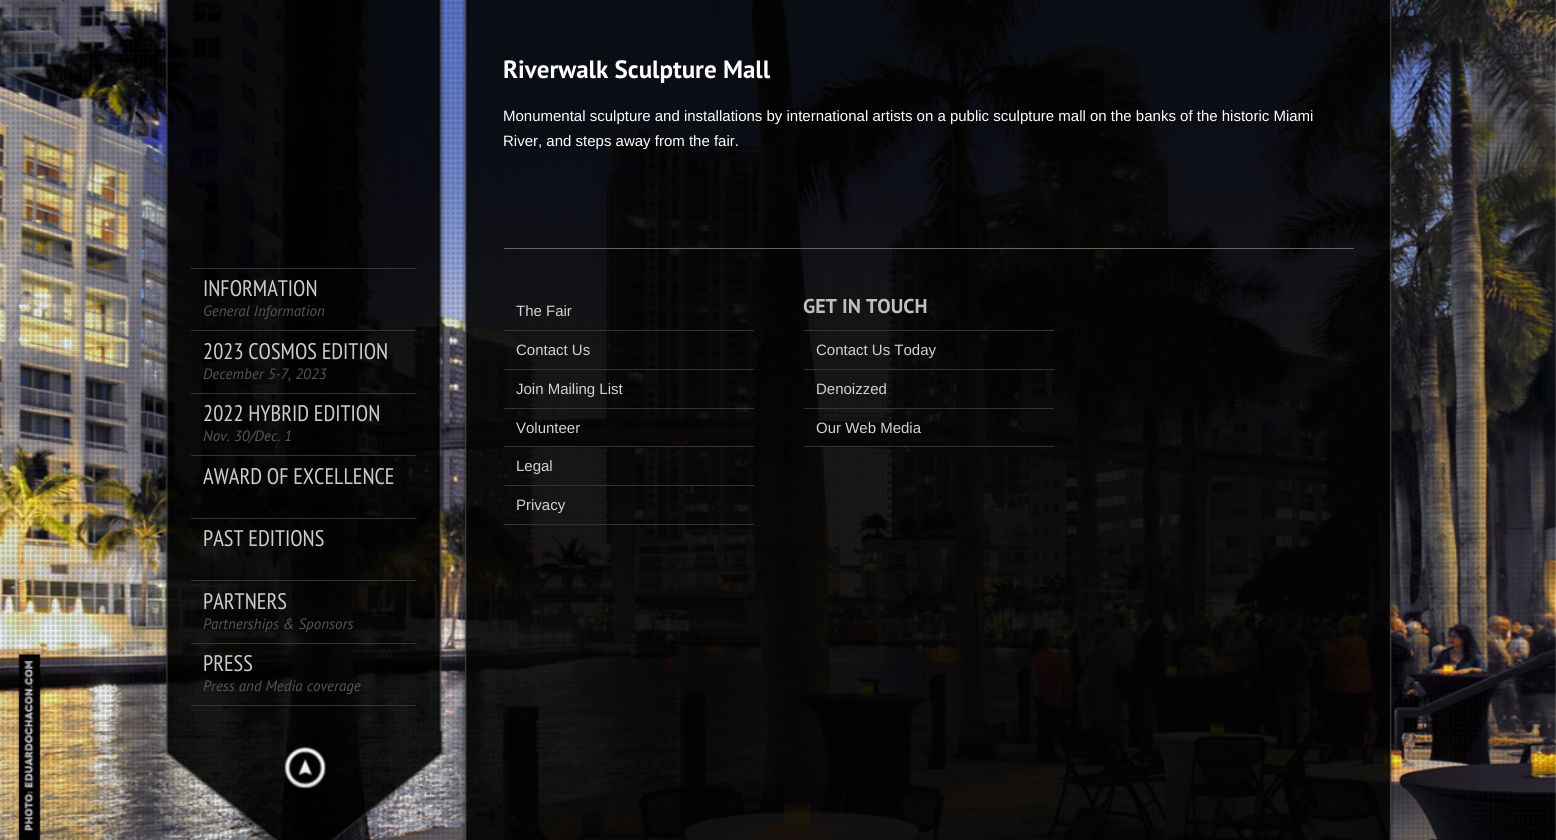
#include <cairo.h>
#include <math.h>
#include <stddef.h>


static void rgb(cairo_t *cr, int r, int g, int b)
{
	cairo_set_source_rgb(cr, r / 255.0, g / 255.0, b / 255.0);
}

static void face(cairo_t *cr, const char *family, double size, int italic, int bold)
{
	cairo_select_font_face(cr, family, italic ? CAIRO_FONT_SLANT_ITALIC : CAIRO_FONT_SLANT_NORMAL,
		bold ? CAIRO_FONT_WEIGHT_BOLD : CAIRO_FONT_WEIGHT_NORMAL);
	cairo_set_font_size(cr, size);
}

static void label(cairo_t *cr, double x, double y, const char *s)
{
	cairo_move_to(cr, x, y);
	cairo_show_text(cr, s);
}

static void rect(cairo_t *cr, double x, double y, double w, double h)
{
	cairo_rectangle(cr, x, y, w, h);
	cairo_fill(cr);
}

static void image(cairo_t *cr, const char *path, double x, double y, double w, double h)
{
	cairo_surface_t *image = cairo_image_surface_create_from_png(path);
	cairo_save(cr);
	cairo_set_source_surface(cr, image, x, y);
	cairo_rectangle(cr, x, y, w, h);
	cairo_fill(cr);
	cairo_restore(cr);
	cairo_surface_destroy(image);
}

static void draw(cairo_t *cr) {
	rgb(cr, 255, 255, 255);
	cairo_paint(cr);
	image(cr, "image0.png", 0, 0, 1556, 840);
	image(cr, "image1.png", 0, 0, 1556, 840);
	image(cr, "image2.png", 163, 0, 282, 732);
	rgb(cr, 52, 52, 52);
	rect(cr, 191, 268, 225, 1);
	rect(cr, 191, 330, 225, 1);
	face(cr, "PT Sans Narrow", 22.5, 0, 0);
	rgb(cr, 204, 204, 204);
	label(cr, 203, 296, "INFORMATION");
	face(cr, "PT Sans", 15, 1, 0);
	rgb(cr, 85, 85, 85);
	label(cr, 203, 316, "General Information");
	rgb(cr, 52, 52, 52);
	rect(cr, 191, 393, 225, 1);
	face(cr, "PT Sans Narrow", 22.5, 0, 0);
	rgb(cr, 204, 204, 204);
	label(cr, 203, 359, "2023 COSMOS EDITION");
	face(cr, "PT Sans", 15, 1, 0);
	rgb(cr, 85, 85, 85);
	label(cr, 203, 379, "December 5-7, 2023");
	rgb(cr, 52, 52, 52);
	rect(cr, 191, 455, 225, 1);
	face(cr, "PT Sans Narrow", 22.5, 0, 0);
	rgb(cr, 204, 204, 204);
	label(cr, 203, 421, "2022 HYBRID EDITION");
	face(cr, "PT Sans", 15, 1, 0);
	rgb(cr, 85, 85, 85);
	label(cr, 203, 441, "Nov. 30/Dec. 1");
	rgb(cr, 52, 52, 52);
	rect(cr, 191, 518, 225, 1);
	face(cr, "PT Sans Narrow", 22.5, 0, 0);
	rgb(cr, 204, 204, 204);
	label(cr, 203, 484, "AWARD OF EXCELLENCE");
	rgb(cr, 52, 52, 52);
	rect(cr, 191, 580, 225, 1);
	rgb(cr, 204, 204, 204);
	label(cr, 203, 546, "PAST EDITIONS");
	rgb(cr, 52, 52, 52);
	rect(cr, 191, 643, 225, 1);
	rgb(cr, 204, 204, 204);
	label(cr, 203, 609, "PARTNERS");
	face(cr, "PT Sans", 15, 1, 0);
	rgb(cr, 85, 85, 85);
	label(cr, 203, 629, "Partnerships & Sponsors");
	rgb(cr, 52, 52, 52);
	rect(cr, 191, 705, 225, 1);
	face(cr, "PT Sans Narrow", 22.5, 0, 0);
	rgb(cr, 204, 204, 204);
	label(cr, 203, 671, "PRESS");
	face(cr, "PT Sans", 15, 1, 0);
	rgb(cr, 85, 85, 85);
	label(cr, 203, 691, "Press and Media coverage");
	image(cr, "image3.png", 163, 731, 283, 109);
	image(cr, "image4.png", 284, 746, 42, 43);
	image(cr, "image5.png", 461, 0, 934, 840);
	face(cr, "PT Sans", 25, 0, 1);
	rgb(cr, 255, 255, 255);
	label(cr, 503, 78, "Riverwalk Sculpture Mall");
	face(cr, "Liberation Sans", 15, 0, 0);
	label(cr, 503, 121, "Monumental sculpture and installations by international artists on a public sculpture mall on the banks of the historic Miami");
	label(cr, 503, 146, "River, and steps away from the fair.");
	rgb(cr, 100, 100, 100);
	rect(cr, 504, 248, 850, 1);
	rgb(cr, 51, 51, 51);
	rect(cr, 504, 330, 250, 1);
	rgb(cr, 210, 210, 210);
	label(cr, 516, 316, "The Fair");
	rgb(cr, 51, 51, 51);
	rect(cr, 504, 369, 250, 1);
	rgb(cr, 210, 210, 210);
	label(cr, 516, 355, "Contact Us");
	rgb(cr, 51, 51, 51);
	rect(cr, 504, 408, 250, 1);
	rgb(cr, 210, 210, 210);
	label(cr, 516, 394, "Join Mailing List");
	rgb(cr, 51, 51, 51);
	rect(cr, 504, 446, 250, 1);
	rgb(cr, 210, 210, 210);
	label(cr, 516, 433, "Volunteer");
	rgb(cr, 51, 51, 51);
	rect(cr, 504, 485, 250, 1);
	rgb(cr, 210, 210, 210);
	label(cr, 516, 471, "Legal");
	rgb(cr, 51, 51, 51);
	rect(cr, 504, 524, 250, 1);
	rgb(cr, 210, 210, 210);
	label(cr, 516, 510, "Privacy");
	rgb(cr, 51, 51, 51);
	rect(cr, 804, 330, 250, 1);
	face(cr, "PT Sans", 20, 0, 1);
	rgb(cr, 191, 191, 191);
	label(cr, 803, 313, "GET IN TOUCH");
	rgb(cr, 51, 51, 51);
	rect(cr, 804, 369, 250, 1);
	face(cr, "Liberation Sans", 15, 0, 0);
	rgb(cr, 210, 210, 210);
	label(cr, 816, 355, "Contact Us Today");
	rgb(cr, 51, 51, 51);
	rect(cr, 804, 408, 250, 1);
	rgb(cr, 210, 210, 210);
	label(cr, 816, 394, "Denoizzed");
	rgb(cr, 51, 51, 51);
	rect(cr, 804, 446, 250, 1);
	rgb(cr, 210, 210, 210);
	label(cr, 816, 433, "Our Web Media");
}

int main(void) {
	cairo_surface_t *surface = cairo_image_surface_create(CAIRO_FORMAT_RGB24, 1556, 840);
	cairo_t *cr = cairo_create(surface);
	cairo_font_options_t *options = cairo_font_options_create();
	cairo_font_options_set_hint_metrics(options, CAIRO_HINT_METRICS_OFF);
	cairo_font_options_set_hint_style(options, CAIRO_HINT_STYLE_NONE);
	cairo_set_font_options(cr, options);
	cairo_set_miter_limit(cr, 4);
	draw(cr);
	cairo_surface_write_to_png(surface, "render.png");
	cairo_font_options_destroy(options);
	cairo_destroy(cr);
	cairo_surface_destroy(surface);
	return 0;
}
